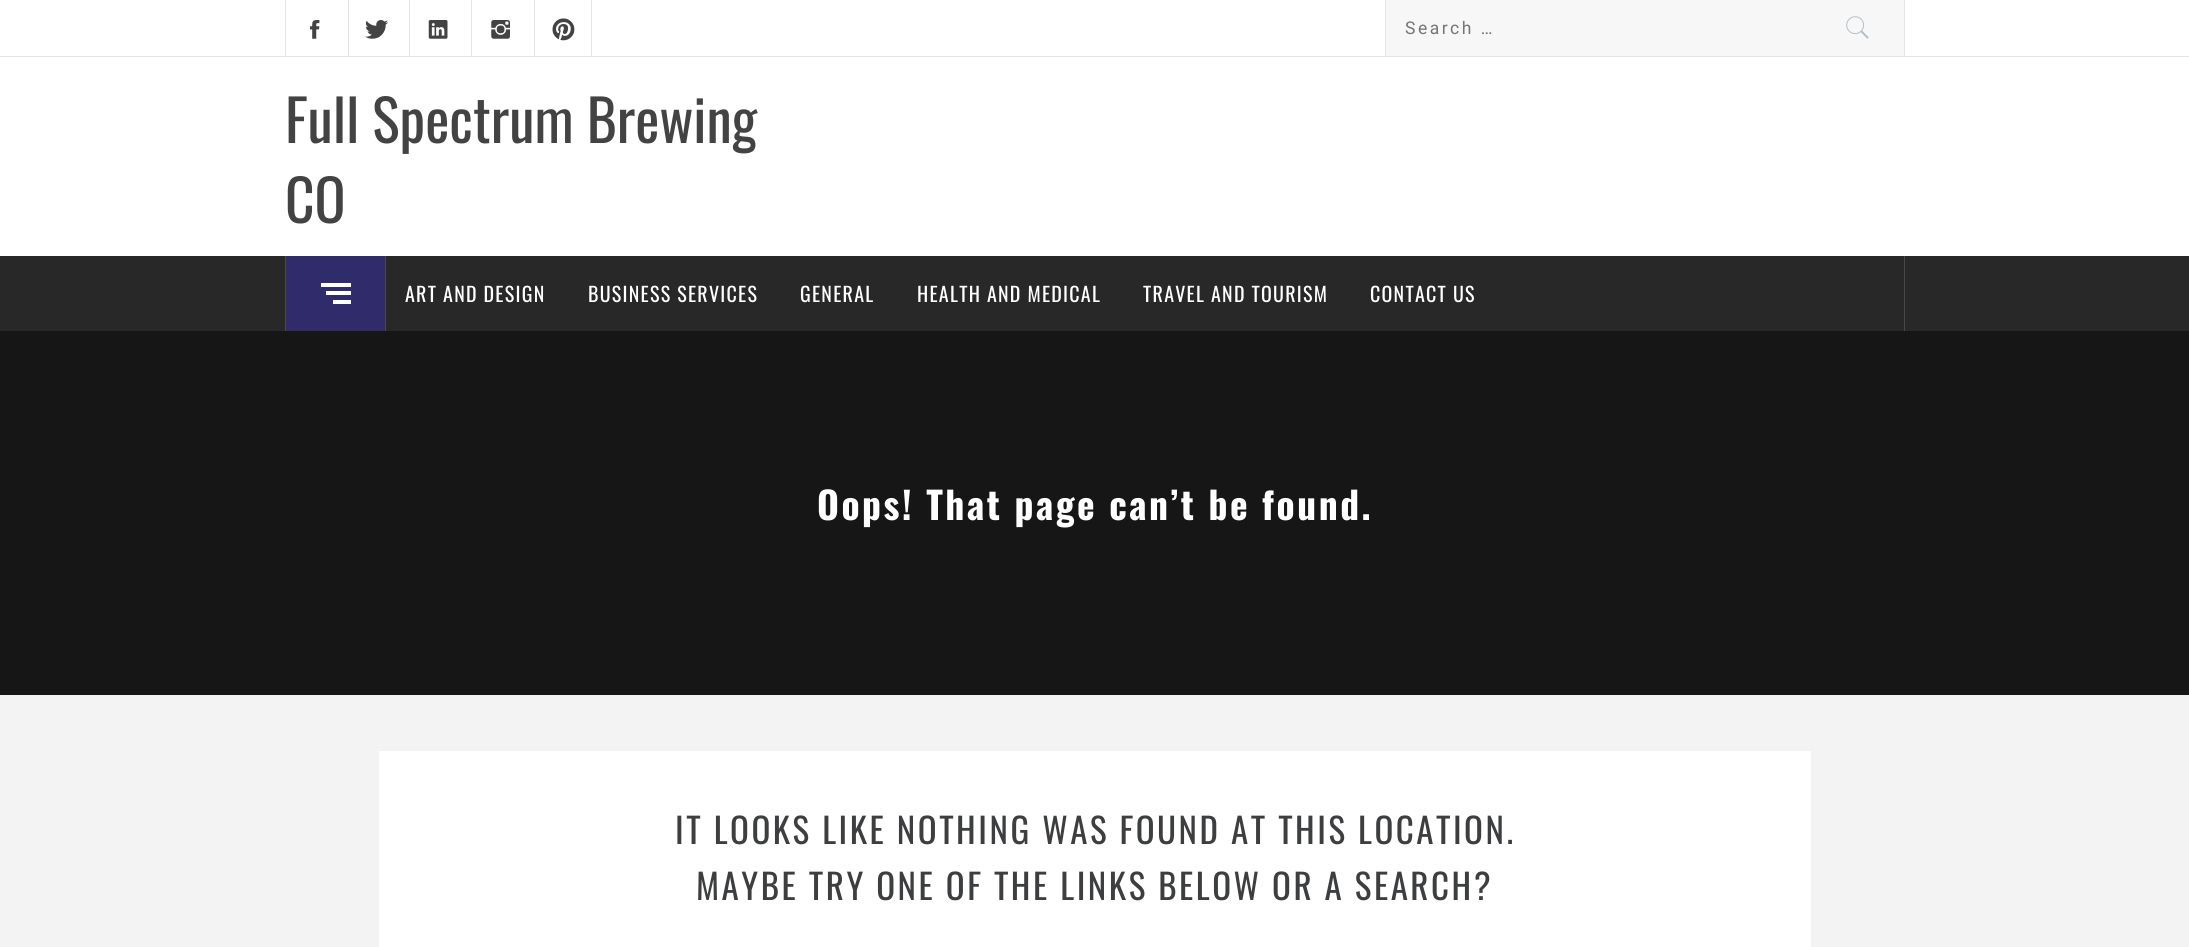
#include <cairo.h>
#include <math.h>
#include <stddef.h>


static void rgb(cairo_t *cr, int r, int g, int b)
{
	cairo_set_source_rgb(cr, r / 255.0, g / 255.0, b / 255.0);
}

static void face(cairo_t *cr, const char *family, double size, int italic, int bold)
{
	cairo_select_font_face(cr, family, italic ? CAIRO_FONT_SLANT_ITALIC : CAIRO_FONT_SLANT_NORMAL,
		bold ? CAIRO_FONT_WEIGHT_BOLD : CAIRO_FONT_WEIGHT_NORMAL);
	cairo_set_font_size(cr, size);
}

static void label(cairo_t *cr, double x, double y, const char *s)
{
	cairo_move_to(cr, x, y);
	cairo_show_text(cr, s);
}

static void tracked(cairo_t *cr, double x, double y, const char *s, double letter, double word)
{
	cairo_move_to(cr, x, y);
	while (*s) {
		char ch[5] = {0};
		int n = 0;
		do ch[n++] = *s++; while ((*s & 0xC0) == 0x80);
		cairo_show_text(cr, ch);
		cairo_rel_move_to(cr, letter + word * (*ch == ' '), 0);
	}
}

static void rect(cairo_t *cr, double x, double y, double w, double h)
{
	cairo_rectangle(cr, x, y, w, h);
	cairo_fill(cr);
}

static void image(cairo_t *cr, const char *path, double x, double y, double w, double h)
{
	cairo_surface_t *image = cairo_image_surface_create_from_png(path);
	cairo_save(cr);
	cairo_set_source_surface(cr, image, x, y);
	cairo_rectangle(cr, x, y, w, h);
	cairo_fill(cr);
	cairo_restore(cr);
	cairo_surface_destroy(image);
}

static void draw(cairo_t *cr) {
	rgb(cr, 243, 243, 243);
	cairo_paint(cr);
	rgb(cr, 255, 255, 255);
	rect(cr, 0, 0, 2189, 256);
	rgb(cr, 228, 228, 228);
	rect(cr, 0, 56, 2189, 1);
	rect(cr, 285, 0, 1, 56);
	image(cr, "image0.png", 310, 20, 10, 19);
	rect(cr, 348, 0, 1, 56);
	image(cr, "image1.png", 365, 20, 23, 19);
	rect(cr, 409, 0, 1, 56);
	image(cr, "image2.png", 428, 20, 20, 19);
	rect(cr, 471, 0, 1, 56);
	image(cr, "image3.png", 491, 20, 19, 19);
	rect(cr, 591, 0, 1, 56);
	rect(cr, 534, 0, 1, 56);
	image(cr, "image4.png", 552, 18, 23, 23);
	rgb(cr, 247, 247, 247);
	rect(cr, 1386, 0, 518, 56);
	rgb(cr, 228, 228, 228);
	rect(cr, 1904, 0, 1, 56);
	rect(cr, 1385, 0, 1, 56);
	face(cr, "Roboto", 17.5, 0, 0);
	rgb(cr, 117, 117, 117);
	tracked(cr, 1405, 34, "Search …", 2.5, 0);
	image(cr, "image5.png", 1846, 16, 23, 23);
	face(cr, "Oswald", 57.5, 0, 0);
	rgb(cr, 67, 67, 67);
	label(cr, 285, 143, "Full Spectrum Brewing");
	label(cr, 285, 223, "CO");
	rgb(cr, 40, 40, 40);
	rect(cr, 0, 256, 2189, 75);
	rgb(cr, 72, 72, 72);
	rect(cr, 1904, 256, 1, 75);
	rect(cr, 285, 256, 1, 75);
	rect(cr, 385, 256, 1, 75);
	rgb(cr, 48, 43, 106);
	rect(cr, 286, 256, 99, 75);
	rgb(cr, 255, 255, 255);
	rect(cr, 321, 283, 30, 4);
	rect(cr, 326, 291, 25, 4);
	rect(cr, 333, 300, 18, 4);
	face(cr, "Oswald", 20, 0, 0);
	tracked(cr, 405, 302, "ART AND DESIGN", 1.25, 0);
	tracked(cr, 588, 302, "BUSINESS SERVICES", 1.25, 0);
	tracked(cr, 800, 302, "GENERAL", 1.25, 0);
	tracked(cr, 917, 302, "HEALTH AND MEDICAL", 1.25, 0);
	tracked(cr, 1143, 302, "TRAVEL AND TOURISM", 1.25, 0);
	tracked(cr, 1370, 302, "CONTACT US", 1.25, 0);
	rgb(cr, 22, 22, 22);
	rect(cr, 0, 331, 2189, 364);
	face(cr, "Oswald", 37.5, 0, 1);
	rgb(cr, 255, 255, 255);
	tracked(cr, 817, 520, "Oops! That page can’t be found.", 2.5, 0);
	rect(cr, 379, 751, 1432, 196);
	face(cr, "Oswald", 35, 0, 0);
	rgb(cr, 61, 62, 64);
	tracked(cr, 675, 844, "IT LOOKS LIKE NOTHING WAS FOUND AT THIS LOCATION.", 2.5, 0);
	tracked(cr, 696, 900, "MAYBE TRY ONE OF THE LINKS BELOW OR A SEARCH?", 2.5, 0);
}

int main(void) {
	cairo_surface_t *surface = cairo_image_surface_create(CAIRO_FORMAT_RGB24, 2189, 947);
	cairo_t *cr = cairo_create(surface);
	cairo_font_options_t *options = cairo_font_options_create();
	cairo_font_options_set_hint_metrics(options, CAIRO_HINT_METRICS_OFF);
	cairo_font_options_set_hint_style(options, CAIRO_HINT_STYLE_NONE);
	cairo_set_font_options(cr, options);
	cairo_set_miter_limit(cr, 4);
	draw(cr);
	cairo_surface_write_to_png(surface, "render.png");
	cairo_font_options_destroy(options);
	cairo_destroy(cr);
	cairo_surface_destroy(surface);
	return 0;
}
